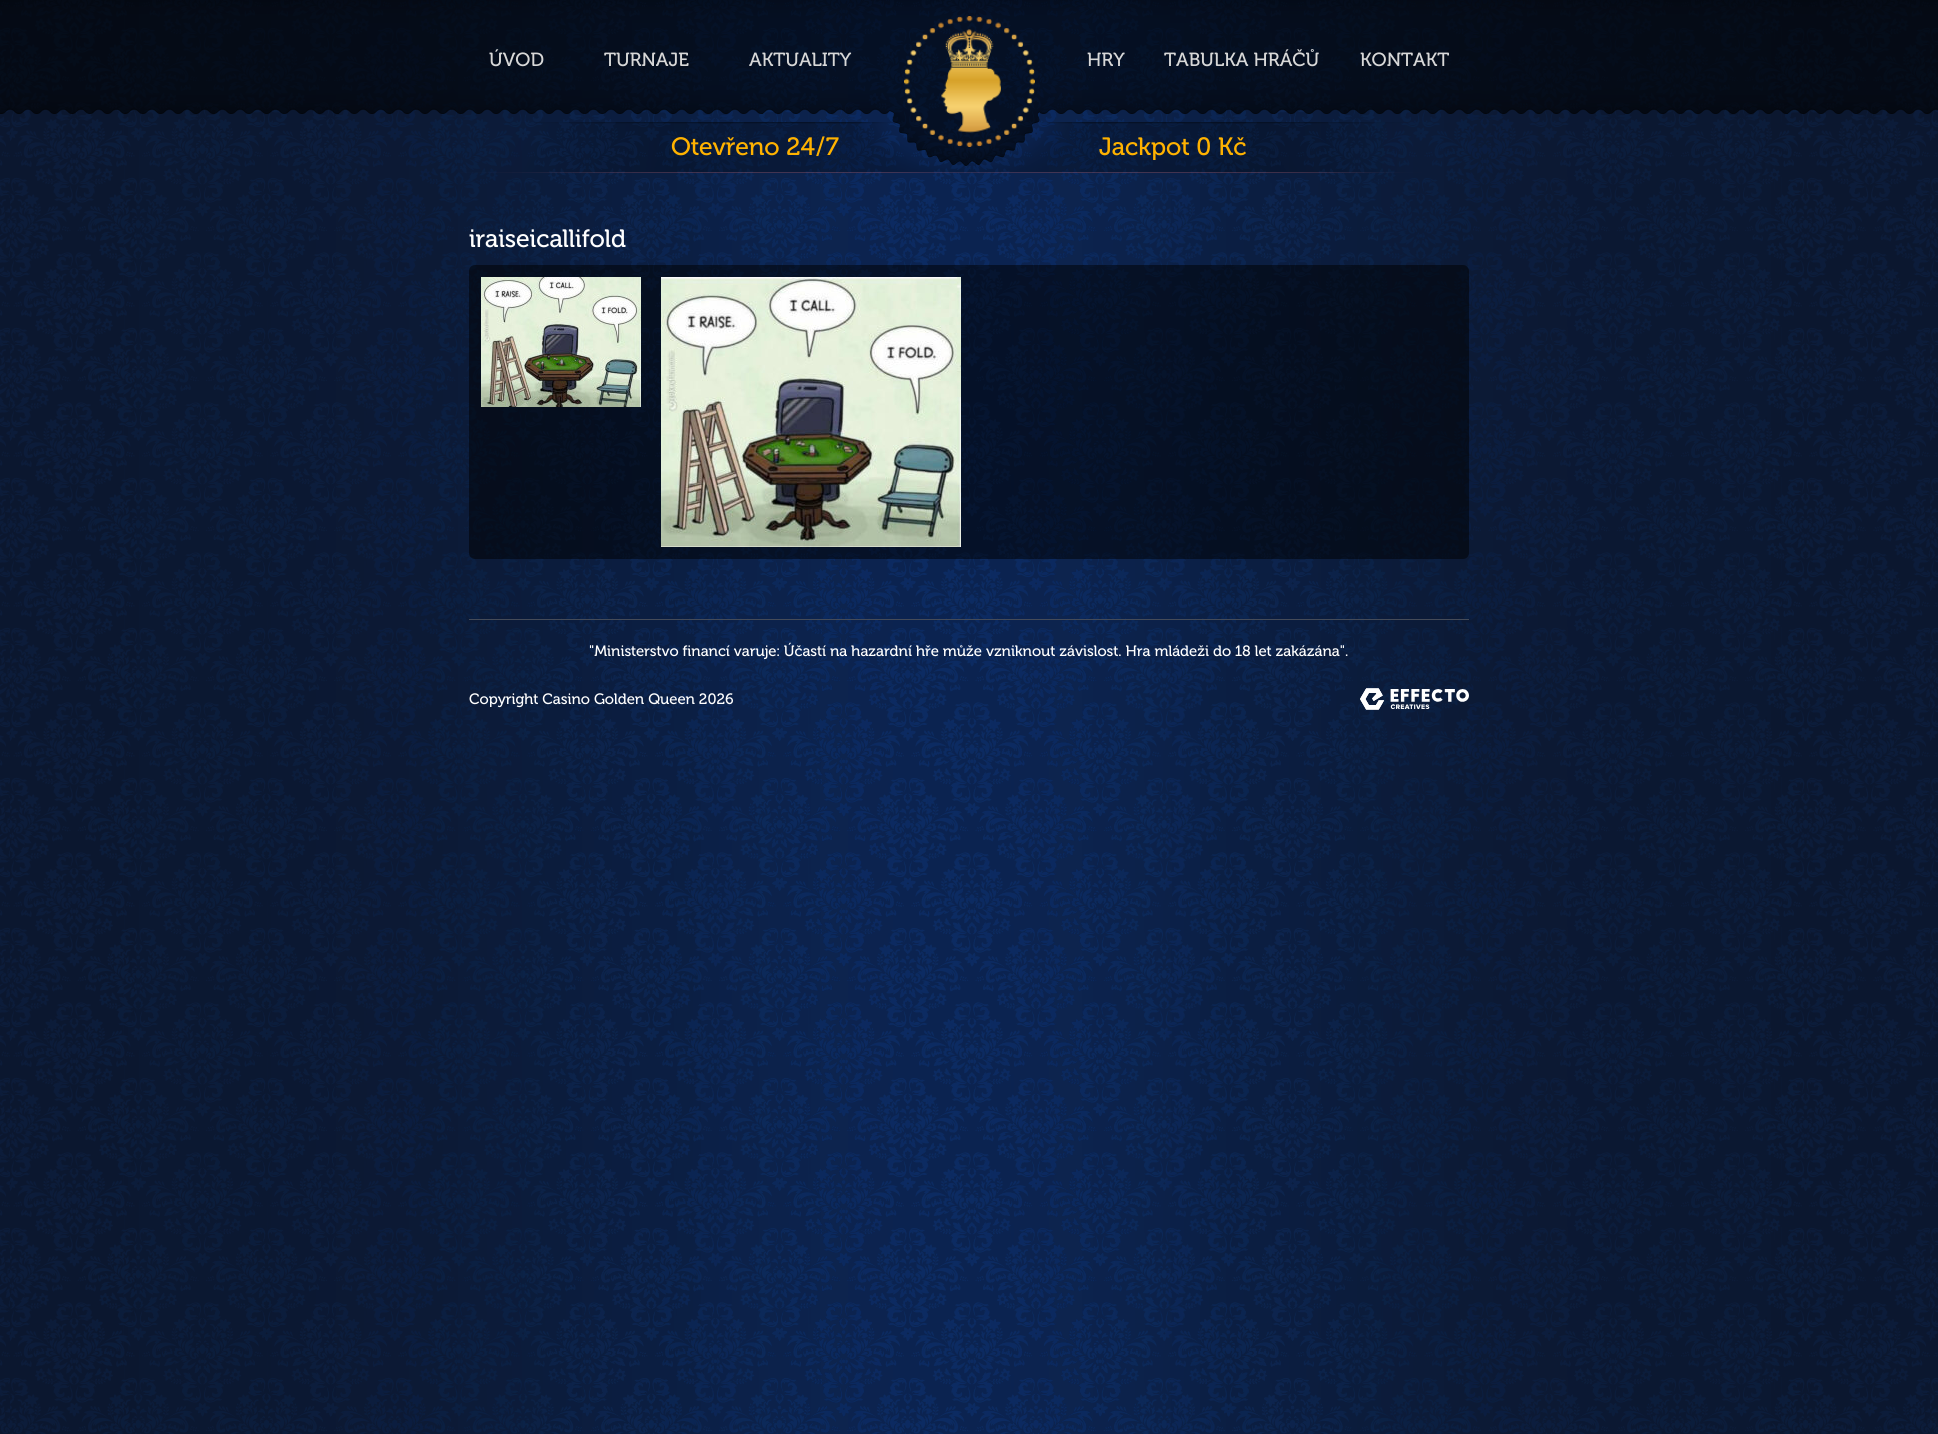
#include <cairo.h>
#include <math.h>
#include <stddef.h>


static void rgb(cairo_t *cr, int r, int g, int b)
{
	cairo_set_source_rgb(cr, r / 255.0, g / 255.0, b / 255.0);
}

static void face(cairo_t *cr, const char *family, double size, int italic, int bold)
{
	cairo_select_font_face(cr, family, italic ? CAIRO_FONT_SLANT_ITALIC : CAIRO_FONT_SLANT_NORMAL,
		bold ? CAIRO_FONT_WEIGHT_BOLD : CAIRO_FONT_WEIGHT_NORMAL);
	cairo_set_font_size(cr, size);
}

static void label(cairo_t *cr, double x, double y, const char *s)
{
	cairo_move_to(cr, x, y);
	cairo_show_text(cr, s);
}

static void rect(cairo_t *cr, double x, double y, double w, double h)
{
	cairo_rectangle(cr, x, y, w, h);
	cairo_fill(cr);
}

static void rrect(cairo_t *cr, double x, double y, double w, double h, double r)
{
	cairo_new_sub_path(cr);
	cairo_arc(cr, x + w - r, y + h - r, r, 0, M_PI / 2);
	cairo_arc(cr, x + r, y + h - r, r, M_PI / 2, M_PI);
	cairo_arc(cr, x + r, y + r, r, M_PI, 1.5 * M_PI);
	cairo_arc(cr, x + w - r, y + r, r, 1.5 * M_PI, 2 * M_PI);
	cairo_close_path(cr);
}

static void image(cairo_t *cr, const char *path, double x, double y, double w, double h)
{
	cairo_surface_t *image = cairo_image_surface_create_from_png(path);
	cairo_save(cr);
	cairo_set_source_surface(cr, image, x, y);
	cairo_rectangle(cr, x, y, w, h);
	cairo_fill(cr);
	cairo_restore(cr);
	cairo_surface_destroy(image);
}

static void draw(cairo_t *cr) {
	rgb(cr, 255, 255, 255);
	cairo_paint(cr);
	image(cr, "image0.png", 0, 0, 1938, 1434);
	image(cr, "image1.png", 0, 0, 1938, 173);
	image(cr, "image2.png", 904, 16, 131, 131);
	face(cr, "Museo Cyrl", 19, 0, 0);
	rgb(cr, 216, 216, 216);
	label(cr, 489, 66, "ÚVOD");
	label(cr, 604, 66, "TURNAJE");
	label(cr, 749, 66, "AKTUALITY");
	label(cr, 1087, 66, "HRY");
	label(cr, 1164, 66, "TABULKA HRÁČŮ");
	label(cr, 1360, 66, "KONTAKT");
	face(cr, "Museo Cyrl", 25, 0, 0);
	rgb(cr, 255, 178, 0);
	label(cr, 671, 155, "Otevřeno 24/7");
	label(cr, 1099, 155, "Jackpot 0 Kč");
	rgb(cr, 255, 255, 255);
	label(cr, 469, 247, "iraiseicallifold");
	cairo_set_source_rgba(cr, 0, 0, 0, 0.5);
	rrect(cr, 469, 265, 1000, 294, 6);
	cairo_fill(cr);
	image(cr, "image3.png", 481, 277, 160, 130);
	image(cr, "image4.png", 661, 277, 300, 270);
	rgb(cr, 69, 75, 88);
	rect(cr, 469, 619, 1000, 1);
	face(cr, "Museo Cyrl", 15, 0, 0);
	rgb(cr, 255, 255, 255);
	label(cr, 589, 656, "\"Ministerstvo financí varuje: Účastí na hazardní hře může vzniknout závislost. Hra mládeži do 18 let zakázána\".");
	label(cr, 469, 704, "Copyright Casino Golden Queen 2026");
	image(cr, "image5.png", 1360, 688, 109, 22);
}

int main(void) {
	cairo_surface_t *surface = cairo_image_surface_create(CAIRO_FORMAT_RGB24, 1938, 1434);
	cairo_t *cr = cairo_create(surface);
	cairo_font_options_t *options = cairo_font_options_create();
	cairo_font_options_set_hint_metrics(options, CAIRO_HINT_METRICS_OFF);
	cairo_font_options_set_hint_style(options, CAIRO_HINT_STYLE_NONE);
	cairo_set_font_options(cr, options);
	cairo_set_miter_limit(cr, 4);
	draw(cr);
	cairo_surface_write_to_png(surface, "render.png");
	cairo_font_options_destroy(options);
	cairo_destroy(cr);
	cairo_surface_destroy(surface);
	return 0;
}
